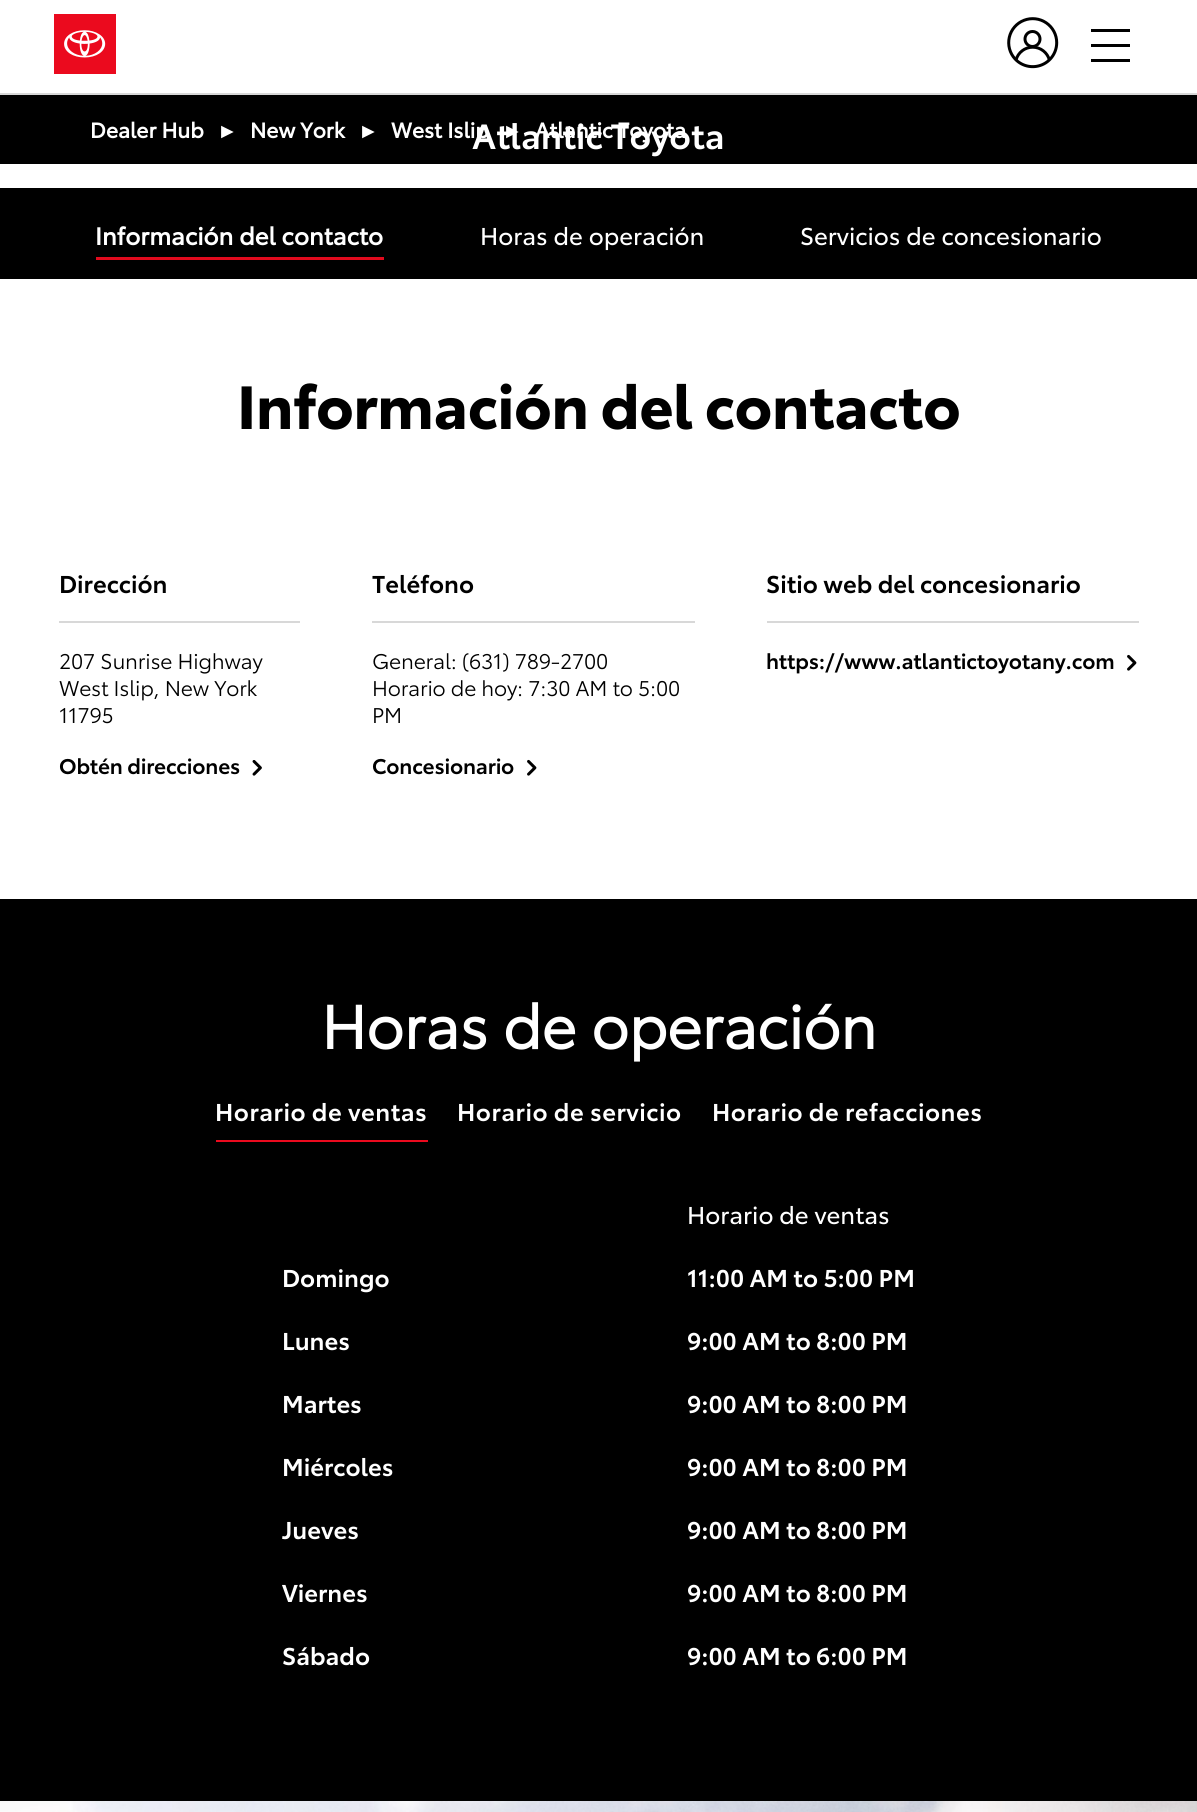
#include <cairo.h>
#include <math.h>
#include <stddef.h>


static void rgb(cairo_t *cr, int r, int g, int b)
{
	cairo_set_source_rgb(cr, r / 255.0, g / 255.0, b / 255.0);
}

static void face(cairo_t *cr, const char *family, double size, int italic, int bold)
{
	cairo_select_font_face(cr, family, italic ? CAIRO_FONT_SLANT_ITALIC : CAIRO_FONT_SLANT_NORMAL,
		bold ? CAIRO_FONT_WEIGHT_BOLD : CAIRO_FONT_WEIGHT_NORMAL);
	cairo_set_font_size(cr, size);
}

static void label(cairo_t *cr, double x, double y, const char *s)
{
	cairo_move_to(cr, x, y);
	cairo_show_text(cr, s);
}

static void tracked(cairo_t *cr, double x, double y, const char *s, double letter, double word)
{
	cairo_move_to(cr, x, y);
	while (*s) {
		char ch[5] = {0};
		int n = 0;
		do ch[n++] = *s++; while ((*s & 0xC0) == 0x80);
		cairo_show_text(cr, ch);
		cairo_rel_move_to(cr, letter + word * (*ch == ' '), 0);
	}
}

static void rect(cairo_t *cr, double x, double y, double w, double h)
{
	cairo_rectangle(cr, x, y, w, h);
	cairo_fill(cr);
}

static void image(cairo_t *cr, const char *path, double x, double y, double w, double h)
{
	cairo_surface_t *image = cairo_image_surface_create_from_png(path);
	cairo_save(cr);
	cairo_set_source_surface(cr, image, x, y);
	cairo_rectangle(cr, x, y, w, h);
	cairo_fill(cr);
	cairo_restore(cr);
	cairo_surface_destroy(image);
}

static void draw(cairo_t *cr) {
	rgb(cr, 255, 255, 255);
	cairo_paint(cr);
	rgb(cr, 216, 216, 216);
	rect(cr, 0, 93, 1197, 2);
	image(cr, "image0.png", 54, 14, 62, 60);
	image(cr, "image1.png", 1007, 17, 52, 52);
	rgb(cr, 0, 0, 0);
	rect(cr, 1091, 29, 39, 3);
	rect(cr, 1091, 44, 39, 3);
	rect(cr, 1091, 59, 39, 3);
	rect(cr, 0, 95, 1197, 69);
	face(cr, "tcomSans", 21, 0, 1);
	rgb(cr, 255, 255, 255);
	label(cr, 90, 138, "Dealer Hub");
	face(cr, "Liberation Sans", 21, 0, 0);
	label(cr, 217, 138, "►");
	face(cr, "tcomSans", 21, 0, 1);
	label(cr, 250, 138, "New York");
	face(cr, "Liberation Sans", 21, 0, 0);
	label(cr, 358, 138, "►");
	face(cr, "tcomSans", 21, 0, 1);
	label(cr, 391, 138, "West Islip");
	face(cr, "Liberation Sans", 21, 0, 0);
	label(cr, 502, 138, "►");
	face(cr, "tcomSans", 21, 0, 1);
	label(cr, 535, 138, "Atlantic Toyota");
	face(cr, "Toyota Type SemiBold", 34.5, 0, 0);
	label(cr, 472, 149, "Atlantic Toyota");
	rgb(cr, 0, 0, 0);
	rect(cr, 0, 188, 1197, 91);
	face(cr, "tcomSans", 24, 0, 1);
	rgb(cr, 255, 255, 255);
	label(cr, 95, 245, "Información del contacto");
	rgb(cr, 225, 10, 29);
	rect(cr, 96, 257, 288, 3);
	face(cr, "tcomSans", 24, 0, 0);
	rgb(cr, 255, 255, 255);
	label(cr, 480, 245, "Horas de operación");
	label(cr, 800, 245, "Servicios de concesionario");
	face(cr, "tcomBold", 60, 0, 1);
	rgb(cr, 0, 0, 0);
	tracked(cr, 237, 429, "Información del contacto", -0.3, 0);
	rgb(cr, 216, 216, 216);
	rect(cr, 59, 621, 241, 2);
	face(cr, "Toyota Type SemiBold", 24, 0, 0);
	rgb(cr, 0, 0, 0);
	label(cr, 59, 593, "Dirección");
	face(cr, "Toyota Type", 21, 0, 0);
	tracked(cr, 59, 669, "207 Sunrise Highway", -0.2, 0);
	tracked(cr, 59, 696, "West Islip, New York", -0.2, 0);
	tracked(cr, 59, 723, "11795", -0.2, 0);
	face(cr, "Toyota Type SemiBold", 21, 0, 0);
	tracked(cr, 59, 774, "Obtén direcciones", -0.2, 0);
	image(cr, "image2.png", 252, 760, 10, 16);
	rgb(cr, 216, 216, 216);
	rect(cr, 372, 621, 323, 2);
	face(cr, "Toyota Type SemiBold", 24, 0, 0);
	rgb(cr, 0, 0, 0);
	label(cr, 372, 593, "Teléfono");
	face(cr, "Toyota Type", 21, 0, 0);
	tracked(cr, 372, 669, "General: (631) 789-2700", -0.2, 0);
	tracked(cr, 372, 696, "Horario de hoy: 7:30 AM to 5:00", -0.2, 0);
	tracked(cr, 372, 723, "PM", -0.2, 0);
	face(cr, "Toyota Type SemiBold", 21, 0, 0);
	tracked(cr, 372, 774, "Concesionario", -0.2, 0);
	image(cr, "image3.png", 527, 759, 10, 17);
	rgb(cr, 216, 216, 216);
	rect(cr, 767, 621, 372, 2);
	face(cr, "Toyota Type SemiBold", 24, 0, 0);
	rgb(cr, 0, 0, 0);
	label(cr, 766, 593, "Sitio web del concesionario");
	face(cr, "Toyota Type SemiBold", 21, 0, 0);
	tracked(cr, 766, 669, "https://www.atlantictoyotany.com", -0.2, 0);
	image(cr, "image3.png", 1127, 654, 10, 17);
	rect(cr, 0, 899, 1197, 902);
	face(cr, "Toyota Type", 60, 0, 1);
	rgb(cr, 255, 255, 255);
	tracked(cr, 321, 1049, "Horas de operación", -0.3, 0);
	rgb(cr, 235, 10, 30);
	rect(cr, 216, 1140, 212, 2);
	face(cr, "Toyota Type SemiBold", 24, 0, 0);
	rgb(cr, 255, 255, 255);
	tracked(cr, 215, 1121, "Horario de ventas", 0.5, 0);
	tracked(cr, 457, 1121, "Horario de servicio", 0.5, 0);
	tracked(cr, 712, 1121, "Horario de refacciones", 0.5, 0);
	face(cr, "tcomSans", 24, 0, 0);
	label(cr, 687, 1224, "Horario de ventas");
	face(cr, "Toyota Type SemiBold", 24, 0, 0);
	label(cr, 282, 1287, "Domingo");
	label(cr, 687, 1287, "11:00 AM to 5:00 PM");
	label(cr, 282, 1350, "Lunes");
	label(cr, 687, 1350, "9:00 AM to 8:00 PM");
	label(cr, 282, 1413, "Martes");
	label(cr, 687, 1413, "9:00 AM to 8:00 PM");
	label(cr, 282, 1476, "Miércoles");
	label(cr, 687, 1476, "9:00 AM to 8:00 PM");
	label(cr, 282, 1539, "Jueves");
	label(cr, 687, 1539, "9:00 AM to 8:00 PM");
	label(cr, 282, 1602, "Viernes");
	label(cr, 687, 1602, "9:00 AM to 8:00 PM");
	label(cr, 282, 1665, "Sábado");
	label(cr, 687, 1665, "9:00 AM to 6:00 PM");
	image(cr, "image4.png", 0, 1801, 1197, 11);
}

int main(void) {
	cairo_surface_t *surface = cairo_image_surface_create(CAIRO_FORMAT_RGB24, 1197, 1812);
	cairo_t *cr = cairo_create(surface);
	cairo_font_options_t *options = cairo_font_options_create();
	cairo_font_options_set_hint_metrics(options, CAIRO_HINT_METRICS_OFF);
	cairo_font_options_set_hint_style(options, CAIRO_HINT_STYLE_NONE);
	cairo_set_font_options(cr, options);
	cairo_set_miter_limit(cr, 4);
	draw(cr);
	cairo_surface_write_to_png(surface, "render.png");
	cairo_font_options_destroy(options);
	cairo_destroy(cr);
	cairo_surface_destroy(surface);
	return 0;
}
